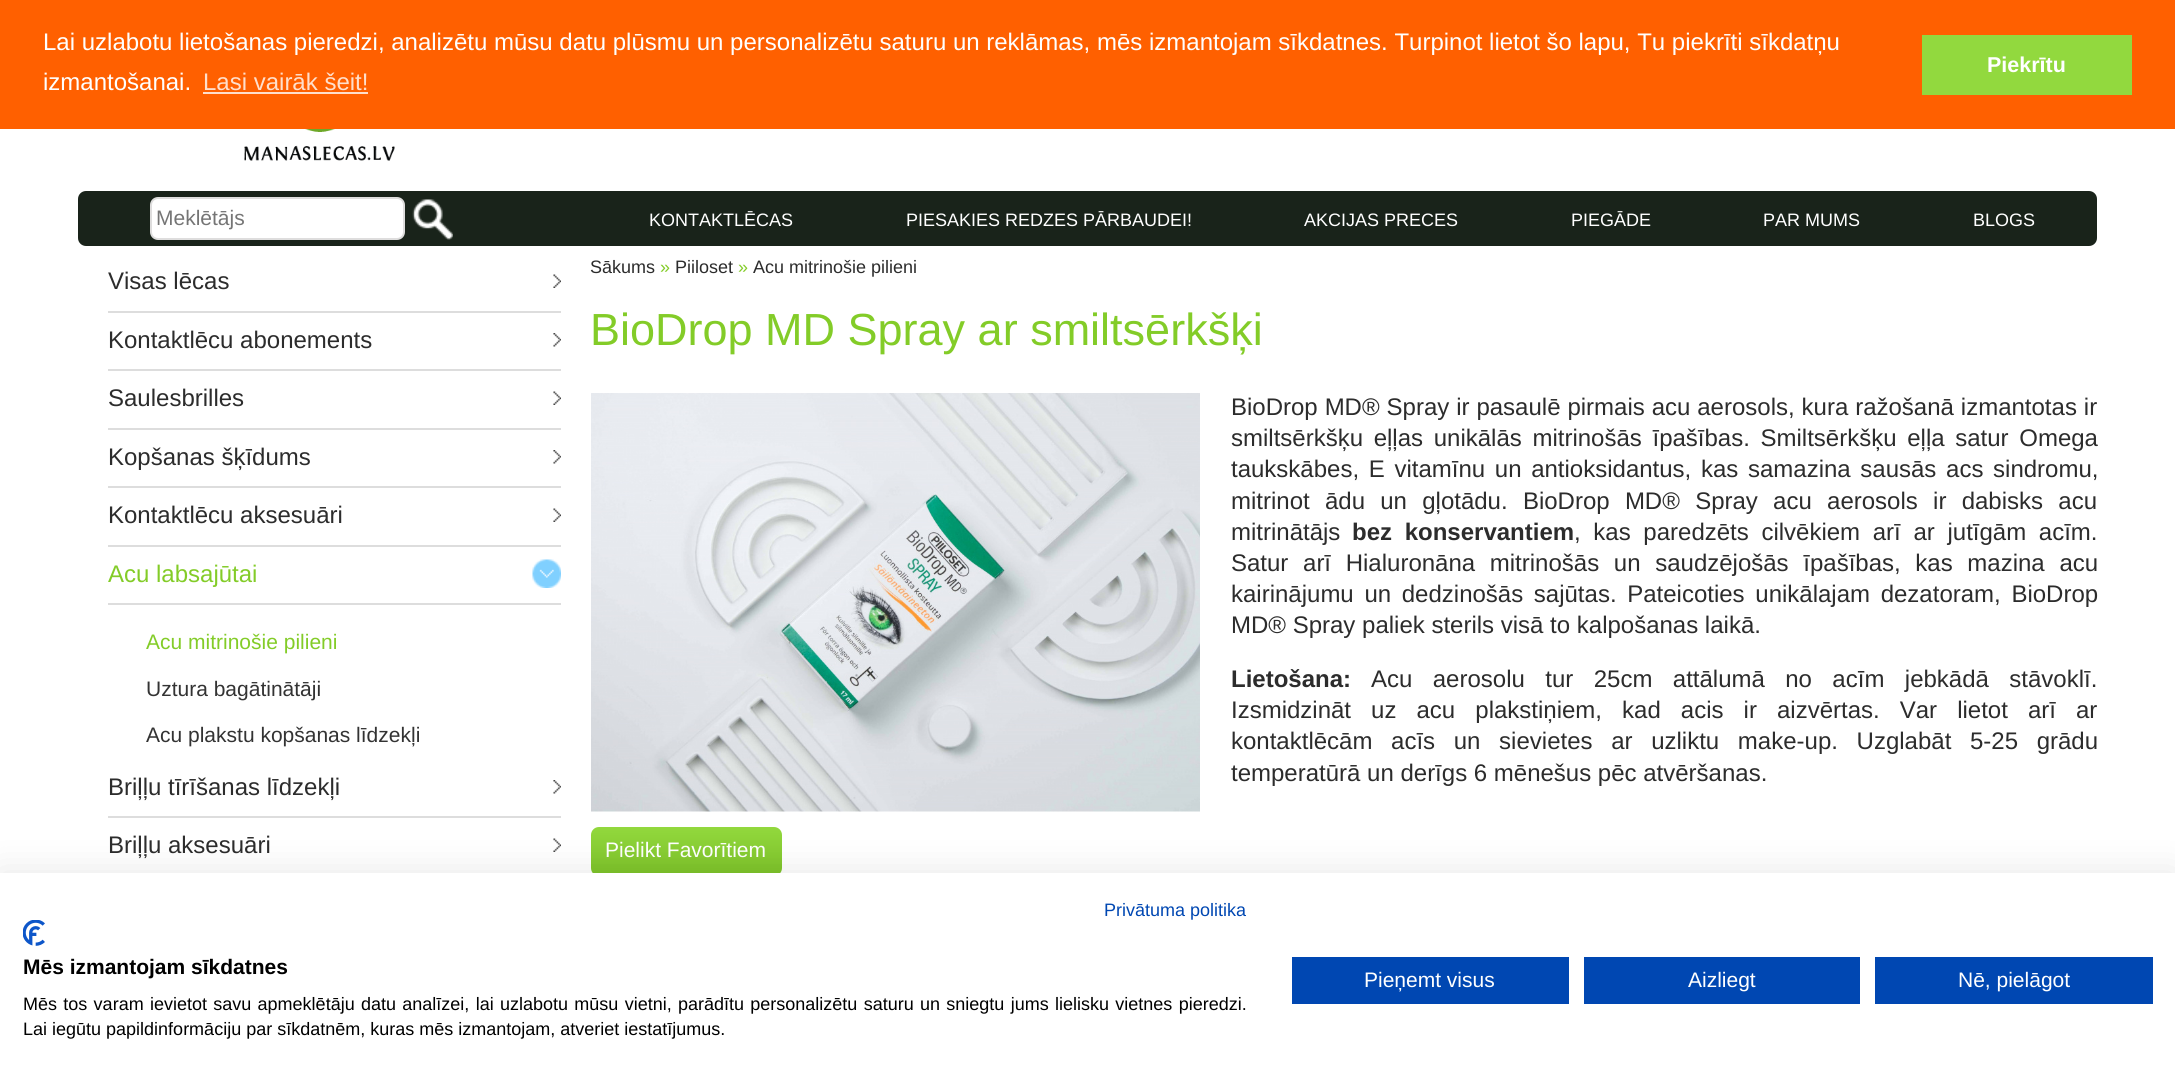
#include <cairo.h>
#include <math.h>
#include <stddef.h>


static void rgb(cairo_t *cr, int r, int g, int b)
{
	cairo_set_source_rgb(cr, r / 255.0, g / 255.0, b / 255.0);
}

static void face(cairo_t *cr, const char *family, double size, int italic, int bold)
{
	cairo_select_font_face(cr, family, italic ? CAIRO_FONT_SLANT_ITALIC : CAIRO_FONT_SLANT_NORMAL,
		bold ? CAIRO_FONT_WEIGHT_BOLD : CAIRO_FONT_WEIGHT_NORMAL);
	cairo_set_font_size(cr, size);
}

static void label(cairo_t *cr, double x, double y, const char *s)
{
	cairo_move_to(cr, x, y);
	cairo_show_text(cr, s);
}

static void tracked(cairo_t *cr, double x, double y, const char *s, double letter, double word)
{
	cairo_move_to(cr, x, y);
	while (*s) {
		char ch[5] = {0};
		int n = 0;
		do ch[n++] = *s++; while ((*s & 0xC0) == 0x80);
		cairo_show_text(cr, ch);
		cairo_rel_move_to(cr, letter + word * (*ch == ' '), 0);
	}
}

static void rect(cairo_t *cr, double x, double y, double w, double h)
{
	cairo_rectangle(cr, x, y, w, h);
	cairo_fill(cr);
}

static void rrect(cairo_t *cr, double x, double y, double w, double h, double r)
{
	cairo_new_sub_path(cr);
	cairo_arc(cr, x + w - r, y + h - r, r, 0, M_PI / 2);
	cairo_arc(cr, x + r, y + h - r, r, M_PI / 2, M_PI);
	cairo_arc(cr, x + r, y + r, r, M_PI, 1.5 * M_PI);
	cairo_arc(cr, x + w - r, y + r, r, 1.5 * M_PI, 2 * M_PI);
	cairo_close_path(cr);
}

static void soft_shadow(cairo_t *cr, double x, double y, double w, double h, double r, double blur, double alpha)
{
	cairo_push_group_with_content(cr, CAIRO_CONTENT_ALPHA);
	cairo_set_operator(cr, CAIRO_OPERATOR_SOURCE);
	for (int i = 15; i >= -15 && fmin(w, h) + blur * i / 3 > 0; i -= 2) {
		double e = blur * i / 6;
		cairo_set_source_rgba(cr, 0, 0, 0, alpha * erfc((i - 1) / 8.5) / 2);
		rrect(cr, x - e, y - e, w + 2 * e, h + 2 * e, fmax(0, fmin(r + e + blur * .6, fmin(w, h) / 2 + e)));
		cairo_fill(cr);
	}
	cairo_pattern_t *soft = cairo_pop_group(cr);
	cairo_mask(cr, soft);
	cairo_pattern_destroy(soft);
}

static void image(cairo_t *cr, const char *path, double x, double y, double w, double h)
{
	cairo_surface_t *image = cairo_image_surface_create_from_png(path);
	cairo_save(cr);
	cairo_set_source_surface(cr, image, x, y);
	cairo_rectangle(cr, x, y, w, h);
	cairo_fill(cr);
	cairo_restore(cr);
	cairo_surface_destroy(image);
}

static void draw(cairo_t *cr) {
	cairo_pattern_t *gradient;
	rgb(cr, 255, 255, 255);
	cairo_paint(cr);
	rgb(cr, 255, 96, 0);
	rect(cr, 0, 0, 2175, 129);
	face(cr, "Liberation Sans", 24, 0, 0);
	rgb(cr, 255, 255, 255);
	label(cr, 43, 50, "Lai uzlabotu lietošanas pieredzi, analizētu mūsu datu plūsmu un personalizētu saturu un reklāmas, mēs izmantojam sīkdatnes. Turpinot lietot šo lapu, Tu piekrīti sīkdatņu");
	label(cr, 43, 90, "izmantošanai.");
	rgb(cr, 255, 223, 204);
	label(cr, 203, 90, "Lasi vairāk šeit!");
	rect(cr, 203, 92, 165, 2);
	rgb(cr, 146, 217, 62);
	rect(cr, 1922, 35, 210, 60);
	face(cr, "Liberation Sans", 21.5, 0, 1);
	rgb(cr, 255, 255, 255);
	label(cr, 1987, 72, "Piekrītu");
	image(cr, "image0.png", 244, 129, 151, 32);
	rgb(cr, 25, 35, 26);
	rrect(cr, 78, 191, 2019, 55, 8);
	cairo_fill(cr);
	rgb(cr, 255, 255, 255);
	rrect(cr, 151, 198, 253, 41, 7);
	cairo_fill_preserve(cr);
	rgb(cr, 222, 221, 221);
	cairo_stroke(cr);
	face(cr, "Liberation Sans", 21, 0, 0);
	rgb(cr, 117, 117, 117);
	label(cr, 156, 225, "Meklētājs");
	image(cr, "image1.png", 412, 199, 41, 41);
	face(cr, "Liberation Sans", 18, 0, 0);
	rgb(cr, 255, 255, 255);
	label(cr, 649, 226, "KONTAKTLĒCAS");
	label(cr, 906, 226, "PIESAKIES REDZES PĀRBAUDEI!");
	label(cr, 1304, 226, "AKCIJAS PRECES");
	label(cr, 1571, 226, "PIEGĀDE");
	label(cr, 1763, 226, "PAR MUMS");
	label(cr, 1973, 226, "BLOGS");
	image(cr, "image2.png", 553, 274, 8, 14);
	rgb(cr, 221, 221, 221);
	rect(cr, 108, 311, 453, 2);
	face(cr, "Liberation Sans", 24, 0, 0);
	rgb(cr, 44, 44, 44);
	label(cr, 108, 289, "Visas lēcas");
	image(cr, "image3.png", 553, 333, 8, 14);
	rgb(cr, 221, 221, 221);
	rect(cr, 108, 369, 453, 2);
	rgb(cr, 44, 44, 44);
	label(cr, 108, 348, "Kontaktlēcu abonements");
	image(cr, "image2.png", 553, 391, 8, 14);
	rgb(cr, 221, 221, 221);
	rect(cr, 108, 428, 453, 2);
	rgb(cr, 44, 44, 44);
	label(cr, 108, 406, "Saulesbrilles");
	image(cr, "image3.png", 553, 450, 8, 14);
	rgb(cr, 221, 221, 221);
	rect(cr, 108, 486, 453, 2);
	rgb(cr, 44, 44, 44);
	label(cr, 108, 465, "Kopšanas šķīdums");
	image(cr, "image2.png", 553, 508, 8, 14);
	rgb(cr, 221, 221, 221);
	rect(cr, 108, 545, 453, 2);
	rgb(cr, 44, 44, 44);
	label(cr, 108, 523, "Kontaktlēcu aksesuāri");
	image(cr, "image4.png", 532, 559, 29, 29);
	rgb(cr, 221, 221, 221);
	rect(cr, 108, 603, 453, 2);
	rgb(cr, 131, 204, 40);
	label(cr, 108, 582, "Acu labsajūtai");
	face(cr, "Liberation Sans", 21, 0, 0);
	label(cr, 146, 649, "Acu mitrinošie pilieni");
	rgb(cr, 51, 51, 51);
	label(cr, 146, 696, "Uztura bagātinātāji");
	label(cr, 146, 742, "Acu plakstu kopšanas līdzekļi");
	image(cr, "image3.png", 553, 780, 8, 14);
	rgb(cr, 221, 221, 221);
	rect(cr, 108, 816, 453, 2);
	face(cr, "Liberation Sans", 24, 0, 0);
	rgb(cr, 44, 44, 44);
	label(cr, 108, 795, "Briļļu tīrīšanas līdzekļi");
	image(cr, "image2.png", 553, 838, 8, 14);
	label(cr, 108, 853, "Briļļu aksesuāri");
	face(cr, "Liberation Sans", 18, 0, 0);
	label(cr, 590, 273, "Sākums");
	rgb(cr, 131, 204, 40);
	label(cr, 660, 273, "»");
	rgb(cr, 44, 44, 44);
	label(cr, 675, 273, "Piiloset");
	rgb(cr, 131, 204, 40);
	label(cr, 738, 273, "»");
	rgb(cr, 44, 44, 44);
	label(cr, 753, 273, "Acu mitrinošie pilieni");
	face(cr, "Liberation Sans", 45, 0, 0);
	rgb(cr, 131, 204, 40);
	label(cr, 590, 345, "BioDrop MD Spray ar smiltsērkšķi");
	face(cr, "Liberation Sans", 24, 0, 0);
	rgb(cr, 44, 44, 44);
	tracked(cr, 1231, 415, "BioDrop MD® Spray ir pasaulē pirmais acu aerosols, kura ražošanā izmantotas ir", 0, 0.25);
	tracked(cr, 1231, 446, "smiltsērkšķu eļļas unikālās mitrinošās īpašības. Smiltsērkšķu eļļa satur Omega", 0, 4);
	tracked(cr, 1231, 477, "taukskābes, E vitamīnu un antioksidantus, kas samazina sausās acs sindromu,", 0, 3);
	tracked(cr, 1231, 509, "mitrinot ādu un gļotādu. BioDrop MD® Spray acu aerosols ir dabisks acu", 0, 8.6);
	label(cr, 1231, 540, "mitrinātājs");
	face(cr, "Liberation Sans", 24, 0, 1);
	tracked(cr, 1352, 540, "bez konservantiem", 0, 6);
	face(cr, "Liberation Sans", 24, 0, 0);
	tracked(cr, 1574, 540, ", kas paredzēts cilvēkiem arī ar jutīgām acīm.", 0, 6);
	tracked(cr, 1231, 571, "Satur arī Hialuronāna mitrinošās un saudzējošās īpašības, kas mazina acu", 0, 8);
	tracked(cr, 1231, 602, "kairinājumu un dedzinošās sajūtas. Pateicoties unikālajam dezatoram, BioDrop", 0, 4);
	label(cr, 1231, 633, "MD® Spray paliek sterils visā to kalpošanas laikā.");
	face(cr, "Liberation Sans", 24, 0, 1);
	label(cr, 1231, 687, "Lietošana:");
	face(cr, "Liberation Sans", 24, 0, 0);
	tracked(cr, 1371, 687, "Acu aerosolu tur 25cm attālumā no acīm jebkādā stāvoklī.", 0, 13.75);
	tracked(cr, 1231, 718, "Izsmidzināt uz acu plakstiņiem, kad acis ir aizvērtas. Var lietot arī ar", 0, 13.4);
	tracked(cr, 1231, 749, "kontaktlēcām acīs un sievietes ar uzliktu make-up. Uzglabāt 5-25 grādu", 0, 12);
	label(cr, 1231, 781, "temperatūrā un derīgs 6 mēnešus pēc atvēršanas.");
	image(cr, "image5.png", 591, 393, 609, 419);
	gradient = cairo_pattern_create_linear(686, 827, 686, 876);
	cairo_pattern_add_color_stop_rgba(gradient, 0, 0.573, 0.847, 0.239, 1);
	cairo_pattern_add_color_stop_rgba(gradient, 1, 0.49, 0.761, 0.161, 1);
	cairo_set_source(cr, gradient);
	cairo_pattern_destroy(gradient);
	rrect(cr, 591, 827, 191, 49, 8);
	cairo_fill(cr);
	face(cr, "Liberation Sans", 21, 0, 0);
	rgb(cr, 255, 255, 255);
	label(cr, 605, 857, "Pielikt Favorītiem");
	rgb(cr, 0, 0, 0);
	soft_shadow(cr, 0, 873, 2175, 210, 0, 18, 0.1);
	rgb(cr, 255, 255, 255);
	rect(cr, 0, 873, 2175, 210);
	face(cr, "Liberation Sans", 18, 0, 0);
	rgb(cr, 0, 71, 178);
	label(cr, 1104, 916, "Privātuma politika");
	image(cr, "image6.png", 23, 920, 22, 26);
	face(cr, "Liberation Sans", 21, 0, 1);
	rgb(cr, 0, 0, 0);
	label(cr, 23, 974, "Mēs izmantojam sīkdatnes");
	face(cr, "Liberation Sans", 18, 0, 0);
	tracked(cr, 23, 1010, "Mēs tos varam ievietot savu apmeklētāju datu analīzei, lai uzlabotu mūsu vietni, parādītu personalizētu saturu un sniegtu jums lielisku vietnes pieredzi.", 0, 1.3);
	label(cr, 23, 1035, "Lai iegūtu papildinformāciju par sīkdatnēm, kuras mēs izmantojam, atveriet iestatījumus.");
	rgb(cr, 0, 71, 178);
	rect(cr, 1292, 957, 277, 47);
	face(cr, "Liberation Sans", 21, 0, 0);
	rgb(cr, 255, 255, 255);
	label(cr, 1364, 987, "Pieņemt visus");
	rgb(cr, 0, 71, 178);
	rect(cr, 1584, 957, 276, 47);
	rgb(cr, 255, 255, 255);
	label(cr, 1688, 987, "Aizliegt");
	rgb(cr, 0, 71, 178);
	rect(cr, 1875, 957, 278, 47);
	rgb(cr, 255, 255, 255);
	label(cr, 1958, 987, "Nē, pielāgot");
}

int main(void) {
	cairo_surface_t *surface = cairo_image_surface_create(CAIRO_FORMAT_RGB24, 2175, 1083);
	cairo_t *cr = cairo_create(surface);
	cairo_font_options_t *options = cairo_font_options_create();
	cairo_font_options_set_hint_metrics(options, CAIRO_HINT_METRICS_OFF);
	cairo_font_options_set_hint_style(options, CAIRO_HINT_STYLE_NONE);
	cairo_set_font_options(cr, options);
	cairo_set_miter_limit(cr, 4);
	draw(cr);
	cairo_surface_write_to_png(surface, "render.png");
	cairo_font_options_destroy(options);
	cairo_destroy(cr);
	cairo_surface_destroy(surface);
	return 0;
}
